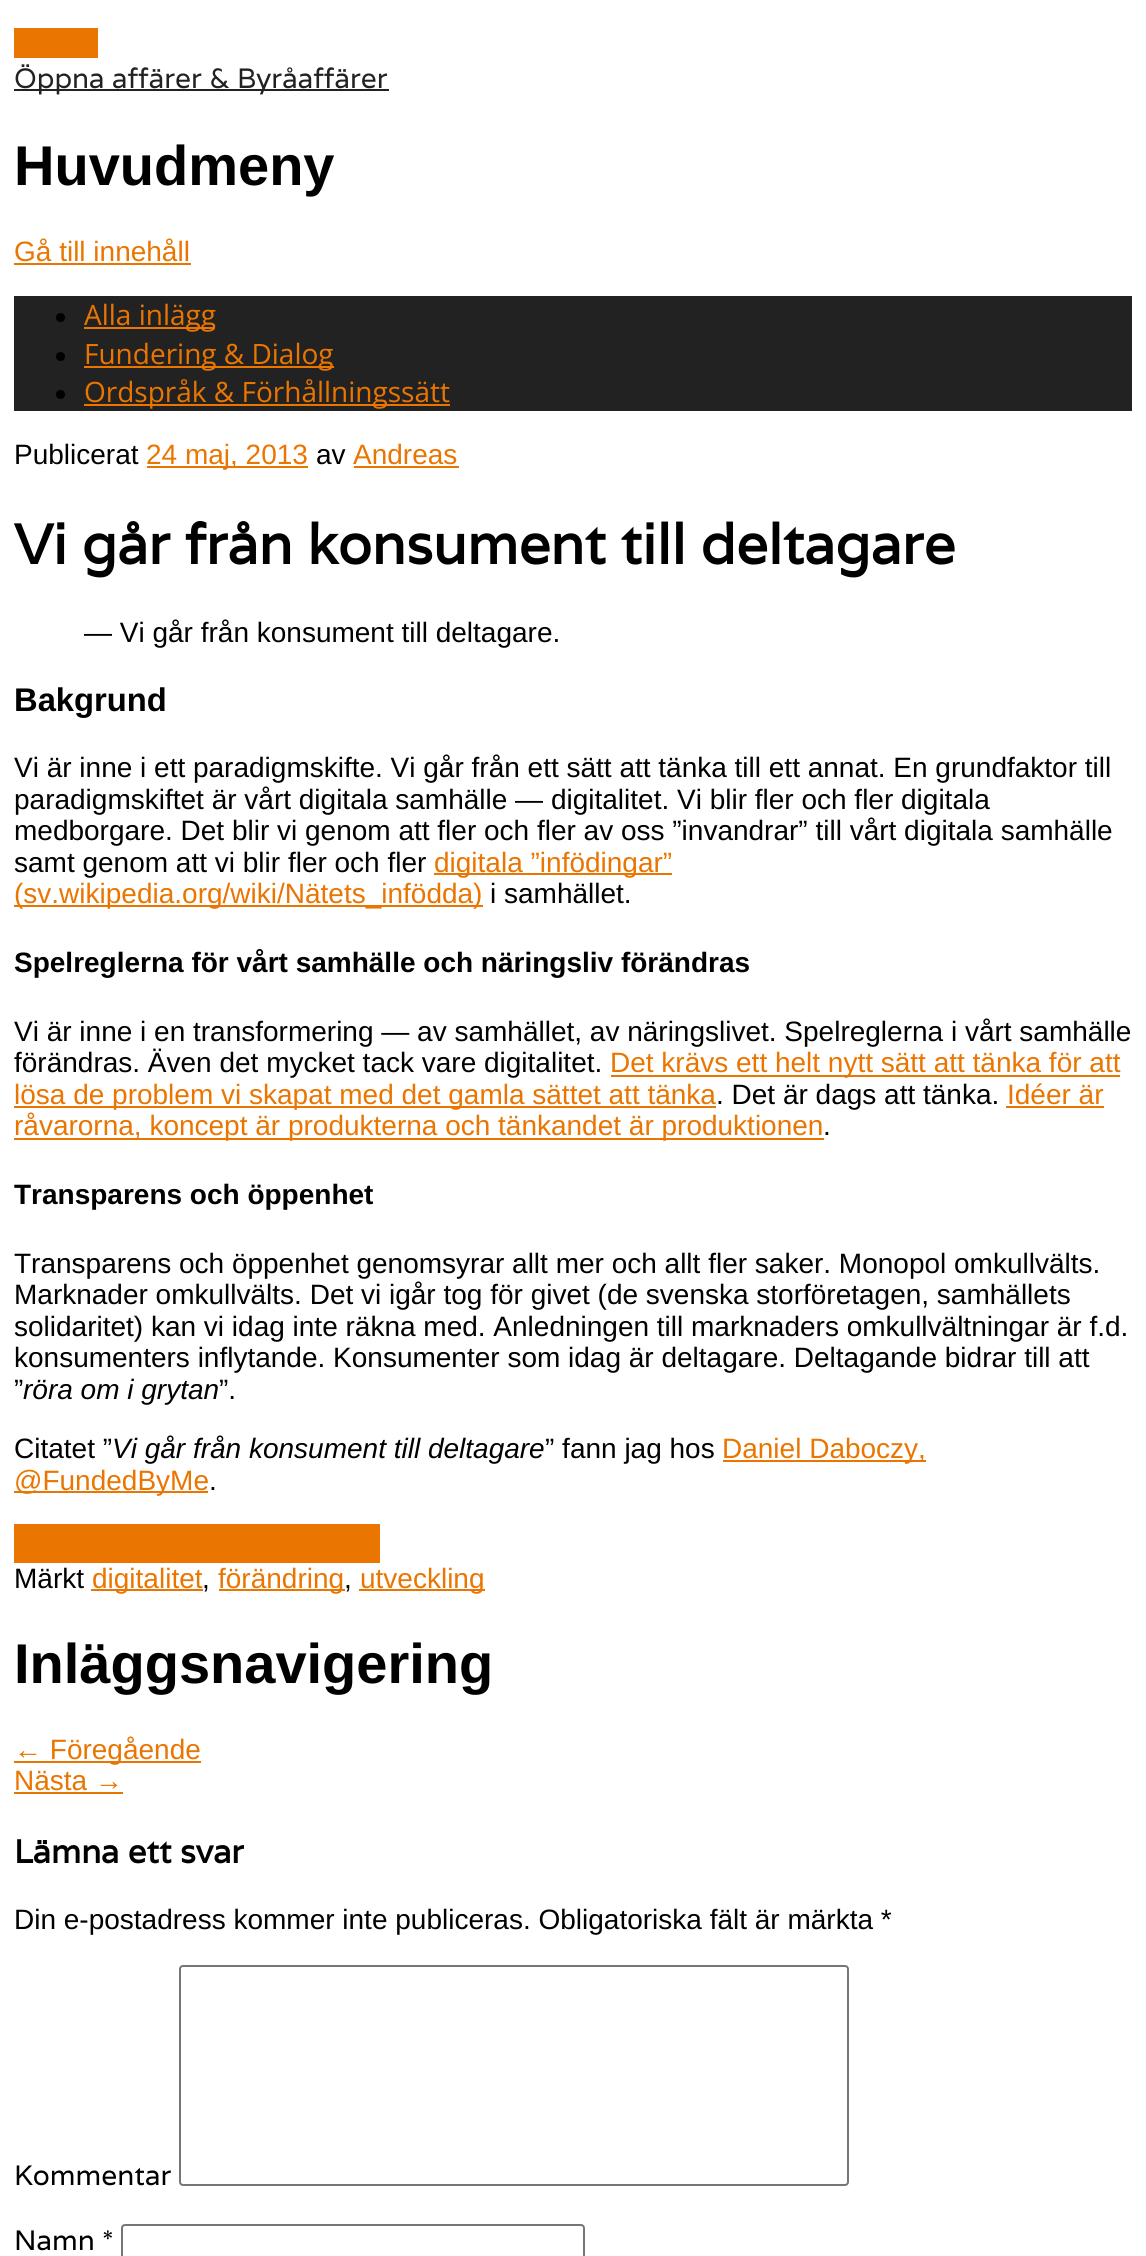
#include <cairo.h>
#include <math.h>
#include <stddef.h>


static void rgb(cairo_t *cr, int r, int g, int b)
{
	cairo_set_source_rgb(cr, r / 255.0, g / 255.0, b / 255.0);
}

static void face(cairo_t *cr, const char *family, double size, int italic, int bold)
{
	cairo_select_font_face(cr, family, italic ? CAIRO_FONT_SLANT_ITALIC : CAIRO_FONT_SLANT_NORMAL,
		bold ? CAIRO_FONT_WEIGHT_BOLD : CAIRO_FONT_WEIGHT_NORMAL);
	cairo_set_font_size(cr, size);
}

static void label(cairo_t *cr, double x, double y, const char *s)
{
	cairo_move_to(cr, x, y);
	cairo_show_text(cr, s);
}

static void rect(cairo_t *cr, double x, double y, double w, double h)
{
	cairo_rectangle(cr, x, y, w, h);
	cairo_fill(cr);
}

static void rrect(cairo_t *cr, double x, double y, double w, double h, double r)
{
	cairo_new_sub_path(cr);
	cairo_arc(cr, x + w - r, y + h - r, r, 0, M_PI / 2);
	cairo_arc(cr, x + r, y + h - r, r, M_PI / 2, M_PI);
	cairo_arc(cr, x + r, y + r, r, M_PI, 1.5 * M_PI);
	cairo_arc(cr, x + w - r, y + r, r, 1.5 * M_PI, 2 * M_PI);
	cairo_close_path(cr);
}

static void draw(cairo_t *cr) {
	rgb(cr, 255, 255, 255);
	cairo_paint(cr);
	rgb(cr, 234, 117, 0);
	rect(cr, 14, 28, 84, 30);
	rgb(cr, 34, 34, 34);
	rect(cr, 14, 89, 375, 2);
	face(cr, "Varela", 28, 0, 0);
	label(cr, 14, 88, "Öppna affärer & Byråaffärer");
	face(cr, "Liberation Sans", 56, 0, 1);
	rgb(cr, 0, 0, 0);
	label(cr, 14, 185, "Huvudmeny");
	face(cr, "Liberation Sans", 28, 0, 0);
	rgb(cr, 234, 117, 0);
	label(cr, 14, 261, "Gå till innehåll");
	rect(cr, 14, 263, 177, 2);
	rgb(cr, 34, 34, 34);
	rect(cr, 14, 296, 1118, 115);
	rgb(cr, 0, 0, 0);
	cairo_new_path(cr);
	cairo_arc(cr, 60.5, 317.5, 4.5, 0, 2 * M_PI);
	cairo_fill(cr);
	rgb(cr, 234, 117, 0);
	rect(cr, 84, 327, 131, 2);
	face(cr, "Open Sans", 28, 0, 0);
	label(cr, 84, 325, "Alla inlägg");
	rgb(cr, 0, 0, 0);
	cairo_new_path(cr);
	cairo_arc(cr, 60.5, 356.5, 4.5, 0, 2 * M_PI);
	cairo_fill(cr);
	rgb(cr, 234, 117, 0);
	rect(cr, 84, 366, 250, 2);
	label(cr, 84, 364, "Fundering & Dialog");
	rgb(cr, 0, 0, 0);
	cairo_new_path(cr);
	cairo_arc(cr, 60.5, 394.5, 4.5, 0, 2 * M_PI);
	cairo_fill(cr);
	rgb(cr, 234, 117, 0);
	rect(cr, 84, 404, 366, 2);
	label(cr, 84, 402, "Ordspråk & Förhållningssätt");
	face(cr, "Liberation Sans", 28, 0, 0);
	rgb(cr, 0, 0, 0);
	label(cr, 14, 464, "Publicerat");
	rgb(cr, 234, 117, 0);
	rect(cr, 147, 466, 161, 2);
	label(cr, 146, 464, "24 maj, 2013");
	rgb(cr, 0, 0, 0);
	label(cr, 316, 464, "av");
	rgb(cr, 234, 117, 0);
	label(cr, 353, 464, "Andreas");
	rect(cr, 354, 466, 105, 2);
	face(cr, "Varela", 56, 0, 1);
	rgb(cr, 0, 0, 0);
	label(cr, 14, 564, "Vi går från konsument till deltagare");
	face(cr, "Liberation Sans", 28, 0, 0);
	label(cr, 84, 642, "— Vi går från konsument till deltagare.");
	face(cr, "Liberation Sans", 32.75, 0, 1);
	label(cr, 14, 711, "Bakgrund");
	face(cr, "Liberation Sans", 28, 0, 0);
	label(cr, 14, 777, "Vi är inne i ett paradigmskifte. Vi går från ett sätt att tänka till ett annat. En grundfaktor till");
	label(cr, 14, 809, "paradigmskiftet är vårt digitala samhälle — digitalitet. Vi blir fler och fler digitala");
	label(cr, 14, 840, "medborgare. Det blir vi genom att fler och fler av oss ”invandrar” till vårt digitala samhälle");
	label(cr, 14, 872, "samt genom att vi blir fler och fler");
	rgb(cr, 234, 117, 0);
	rect(cr, 434, 873, 238, 2);
	label(cr, 434, 872, "digitala ”infödingar”");
	rect(cr, 14, 905, 469, 2);
	label(cr, 14, 903, "(sv.wikipedia.org/wiki/Nätets_infödda)");
	rgb(cr, 0, 0, 0);
	label(cr, 490, 903, "i samhället.");
	face(cr, "Liberation Sans", 28, 0, 1);
	label(cr, 14, 972, "Spelreglerna för vårt samhälle och näringsliv förändras");
	face(cr, "Liberation Sans", 28, 0, 0);
	label(cr, 14, 1041, "Vi är inne i en transformering — av samhället, av näringslivet. Spelreglerna i vårt samhälle");
	label(cr, 14, 1072, "förändras. Även det mycket tack vare digitalitet.");
	rgb(cr, 234, 117, 0);
	rect(cr, 611, 1075, 509, 2);
	label(cr, 610, 1072, "Det krävs ett helt nytt sätt att tänka för att");
	rect(cr, 14, 1106, 702, 2);
	label(cr, 14, 1104, "lösa de problem vi skapat med det gamla sättet att tänka");
	rgb(cr, 0, 0, 0);
	label(cr, 716, 1104, ". Det är dags att tänka.");
	rgb(cr, 234, 117, 0);
	label(cr, 1007, 1104, "Idéer är");
	rect(cr, 1006, 1106, 98, 2);
	rect(cr, 14, 1138, 810, 2);
	label(cr, 14, 1135, "råvarorna, koncept är produkterna och tänkandet är produktionen");
	rgb(cr, 0, 0, 0);
	label(cr, 823, 1135, ".");
	face(cr, "Liberation Sans", 28, 0, 1);
	label(cr, 14, 1204, "Transparens och öppenhet");
	face(cr, "Liberation Sans", 28, 0, 0);
	label(cr, 14, 1273, "Transparens och öppenhet genomsyrar allt mer och allt fler saker. Monopol omkullvälts.");
	label(cr, 14, 1304, "Marknader omkullvälts. Det vi igår tog för givet (de svenska storföretagen, samhällets");
	label(cr, 14, 1336, "solidaritet) kan vi idag inte räkna med. Anledningen till marknaders omkullvältningar är f.d.");
	label(cr, 14, 1367, "konsumenters inflytande. Konsumenter som idag är deltagare. Deltagande bidrar till att");
	label(cr, 14, 1399, "”");
	face(cr, "Liberation Sans", 28, 1, 0);
	label(cr, 23, 1399, "röra om i grytan");
	face(cr, "Liberation Sans", 28, 0, 0);
	label(cr, 219, 1399, "”.");
	label(cr, 14, 1458, "Citatet ”");
	face(cr, "Liberation Sans", 28, 1, 0);
	label(cr, 112, 1458, "Vi går från konsument till deltagare");
	face(cr, "Liberation Sans", 28, 0, 0);
	label(cr, 545, 1458, "” fann jag hos");
	rgb(cr, 234, 117, 0);
	rect(cr, 723, 1460, 203, 2);
	label(cr, 722, 1458, "Daniel Daboczy,");
	rect(cr, 14, 1491, 194, 2);
	label(cr, 14, 1490, "@FundedByMe");
	rgb(cr, 0, 0, 0);
	label(cr, 209, 1490, ".");
	rgb(cr, 234, 117, 0);
	rect(cr, 14, 1524, 366, 39);
	rgb(cr, 0, 0, 0);
	label(cr, 14, 1588, "Märkt");
	rgb(cr, 234, 117, 0);
	rect(cr, 91, 1589, 112, 2);
	label(cr, 92, 1588, "digitalitet");
	rgb(cr, 0, 0, 0);
	label(cr, 202, 1588, ",");
	rgb(cr, 234, 117, 0);
	rect(cr, 219, 1589, 126, 2);
	label(cr, 218, 1588, "förändring");
	rgb(cr, 0, 0, 0);
	label(cr, 344, 1588, ",");
	rgb(cr, 234, 117, 0);
	rect(cr, 359, 1589, 126, 2);
	label(cr, 360, 1588, "utveckling");
	face(cr, "Liberation Sans", 56, 0, 1);
	rgb(cr, 0, 0, 0);
	label(cr, 14, 1683, "Inläggsnavigering");
	rgb(cr, 234, 117, 0);
	rect(cr, 14, 1761, 187, 2);
	face(cr, "Liberation Sans", 28, 0, 0);
	label(cr, 14, 1759, "← Föregående");
	label(cr, 14, 1790, "Nästa →");
	rect(cr, 14, 1792, 109, 2);
	face(cr, "Varela", 32.75, 0, 1);
	rgb(cr, 0, 0, 0);
	label(cr, 14, 1863, "Lämna ett svar");
	face(cr, "Liberation Sans", 28, 0, 0);
	label(cr, 14, 1929, "Din e-postadress kommer inte publiceras. Obligatoriska fält är märkta *");
	face(cr, "Varela", 28, 0, 0);
	label(cr, 14, 2185, "Kommentar");
	rrect(cr, 180, 1966, 668, 219, 3);
	rgb(cr, 118, 118, 118);
	cairo_stroke(cr);
	rgb(cr, 0, 0, 0);
	label(cr, 14, 2250, "Namn *");
	rrect(cr, 122, 2225, 462, 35, 3);
	rgb(cr, 118, 118, 118);
	cairo_stroke(cr);
}

int main(void) {
	cairo_surface_t *surface = cairo_image_surface_create(CAIRO_FORMAT_RGB24, 1146, 2256);
	cairo_t *cr = cairo_create(surface);
	cairo_font_options_t *options = cairo_font_options_create();
	cairo_font_options_set_hint_metrics(options, CAIRO_HINT_METRICS_OFF);
	cairo_font_options_set_hint_style(options, CAIRO_HINT_STYLE_NONE);
	cairo_set_font_options(cr, options);
	cairo_set_miter_limit(cr, 4);
	draw(cr);
	cairo_surface_write_to_png(surface, "render.png");
	cairo_font_options_destroy(options);
	cairo_destroy(cr);
	cairo_surface_destroy(surface);
	return 0;
}
